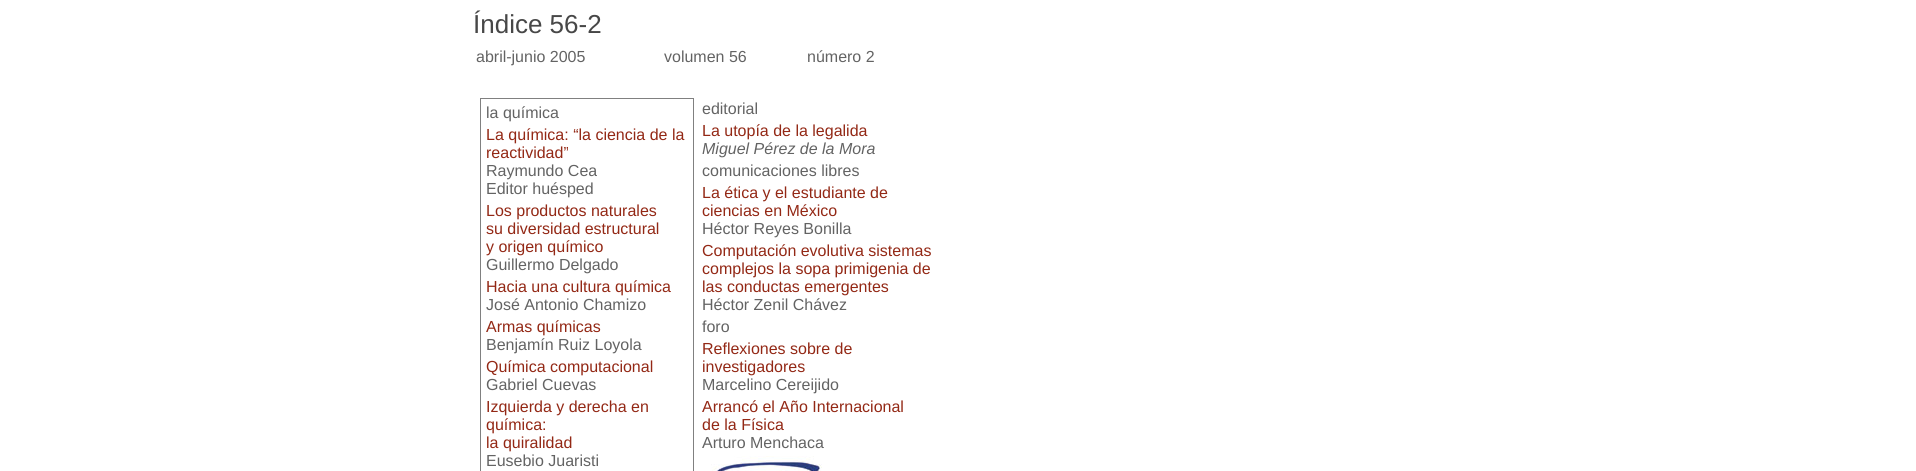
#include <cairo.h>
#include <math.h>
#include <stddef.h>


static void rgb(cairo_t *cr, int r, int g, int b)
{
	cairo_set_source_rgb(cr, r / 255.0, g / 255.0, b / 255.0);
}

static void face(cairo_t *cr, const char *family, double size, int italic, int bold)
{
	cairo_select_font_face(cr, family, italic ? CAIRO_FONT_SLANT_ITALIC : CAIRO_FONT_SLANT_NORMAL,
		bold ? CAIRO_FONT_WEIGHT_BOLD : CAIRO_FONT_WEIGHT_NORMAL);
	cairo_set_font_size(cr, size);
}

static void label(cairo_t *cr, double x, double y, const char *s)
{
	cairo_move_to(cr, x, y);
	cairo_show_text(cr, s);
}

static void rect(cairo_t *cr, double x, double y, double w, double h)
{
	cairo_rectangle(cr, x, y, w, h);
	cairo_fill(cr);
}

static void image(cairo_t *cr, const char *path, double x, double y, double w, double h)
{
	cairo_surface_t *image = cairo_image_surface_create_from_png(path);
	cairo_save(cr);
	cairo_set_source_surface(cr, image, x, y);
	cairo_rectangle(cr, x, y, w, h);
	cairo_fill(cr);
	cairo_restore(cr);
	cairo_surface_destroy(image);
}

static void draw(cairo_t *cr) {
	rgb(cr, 255, 255, 255);
	cairo_paint(cr);
	face(cr, "Liberation Sans", 26, 0, 0);
	rgb(cr, 71, 71, 71);
	label(cr, 473, 33, "Índice 56-2");
	face(cr, "Liberation Sans", 16, 0, 0);
	rgb(cr, 99, 99, 99);
	label(cr, 476, 62, "abril-junio 2005");
	label(cr, 664, 62, "volumen 56");
	label(cr, 807, 62, "número 2");
	rgb(cr, 128, 128, 128);
	rect(cr, 480, 98, 214, 1);
	rect(cr, 693, 98, 1, 373);
	rect(cr, 480, 98, 1, 373);
	rgb(cr, 99, 99, 99);
	label(cr, 486, 118, "la química");
	rgb(cr, 147, 40, 21);
	label(cr, 486, 140, "La química: “la ciencia de la");
	label(cr, 486, 158, "reactividad”");
	rgb(cr, 99, 99, 99);
	label(cr, 486, 176, "Raymundo Cea");
	label(cr, 486, 194, "Editor huésped");
	rgb(cr, 147, 40, 21);
	label(cr, 486, 216, "Los productos naturales");
	label(cr, 486, 234, "su diversidad estructural");
	label(cr, 486, 252, "y origen químico");
	rgb(cr, 99, 99, 99);
	label(cr, 486, 270, "Guillermo Delgado");
	rgb(cr, 147, 40, 21);
	label(cr, 486, 292, "Hacia una cultura química");
	rgb(cr, 99, 99, 99);
	label(cr, 486, 310, "José Antonio Chamizo");
	rgb(cr, 147, 40, 21);
	label(cr, 486, 332, "Armas químicas");
	rgb(cr, 99, 99, 99);
	label(cr, 486, 350, "Benjamín Ruiz Loyola");
	rgb(cr, 147, 40, 21);
	label(cr, 486, 372, "Química computacional");
	rgb(cr, 99, 99, 99);
	label(cr, 486, 390, "Gabriel Cuevas");
	rgb(cr, 147, 40, 21);
	label(cr, 486, 412, "Izquierda y derecha en");
	label(cr, 486, 430, "química:");
	label(cr, 486, 448, "la quiralidad");
	rgb(cr, 99, 99, 99);
	label(cr, 486, 466, "Eusebio Juaristi");
	label(cr, 702, 114, "editorial");
	rgb(cr, 147, 40, 21);
	label(cr, 702, 136, "La utopía de la legalida");
	face(cr, "Liberation Sans", 16, 1, 0);
	rgb(cr, 99, 99, 99);
	label(cr, 702, 154, "Miguel Pérez de la Mora");
	face(cr, "Liberation Sans", 16, 0, 0);
	label(cr, 702, 176, "comunicaciones libres");
	rgb(cr, 147, 40, 21);
	label(cr, 702, 198, "La ética y el estudiante de");
	label(cr, 702, 216, "ciencias en México");
	rgb(cr, 99, 99, 99);
	label(cr, 702, 234, "Héctor Reyes Bonilla");
	rgb(cr, 147, 40, 21);
	label(cr, 702, 256, "Computación evolutiva sistemas");
	label(cr, 702, 274, "complejos la sopa primigenia de");
	label(cr, 702, 292, "las conductas emergentes");
	rgb(cr, 99, 99, 99);
	label(cr, 702, 310, "Héctor Zenil Chávez");
	label(cr, 702, 332, "foro");
	rgb(cr, 147, 40, 21);
	label(cr, 702, 354, "Reflexiones sobre de");
	label(cr, 702, 372, "investigadores");
	rgb(cr, 99, 99, 99);
	label(cr, 702, 390, "Marcelino Cereijido");
	rgb(cr, 147, 40, 21);
	label(cr, 702, 412, "Arrancó el Año Internacional");
	label(cr, 702, 430, "de la Física");
	rgb(cr, 99, 99, 99);
	label(cr, 702, 448, "Arturo Menchaca");
	image(cr, "image0.png", 711, 456, 111, 15);
}

int main(void) {
	cairo_surface_t *surface = cairo_image_surface_create(CAIRO_FORMAT_RGB24, 1916, 471);
	cairo_t *cr = cairo_create(surface);
	cairo_font_options_t *options = cairo_font_options_create();
	cairo_font_options_set_hint_metrics(options, CAIRO_HINT_METRICS_OFF);
	cairo_font_options_set_hint_style(options, CAIRO_HINT_STYLE_NONE);
	cairo_set_font_options(cr, options);
	cairo_set_miter_limit(cr, 4);
	draw(cr);
	cairo_surface_write_to_png(surface, "render.png");
	cairo_font_options_destroy(options);
	cairo_destroy(cr);
	cairo_surface_destroy(surface);
	return 0;
}
